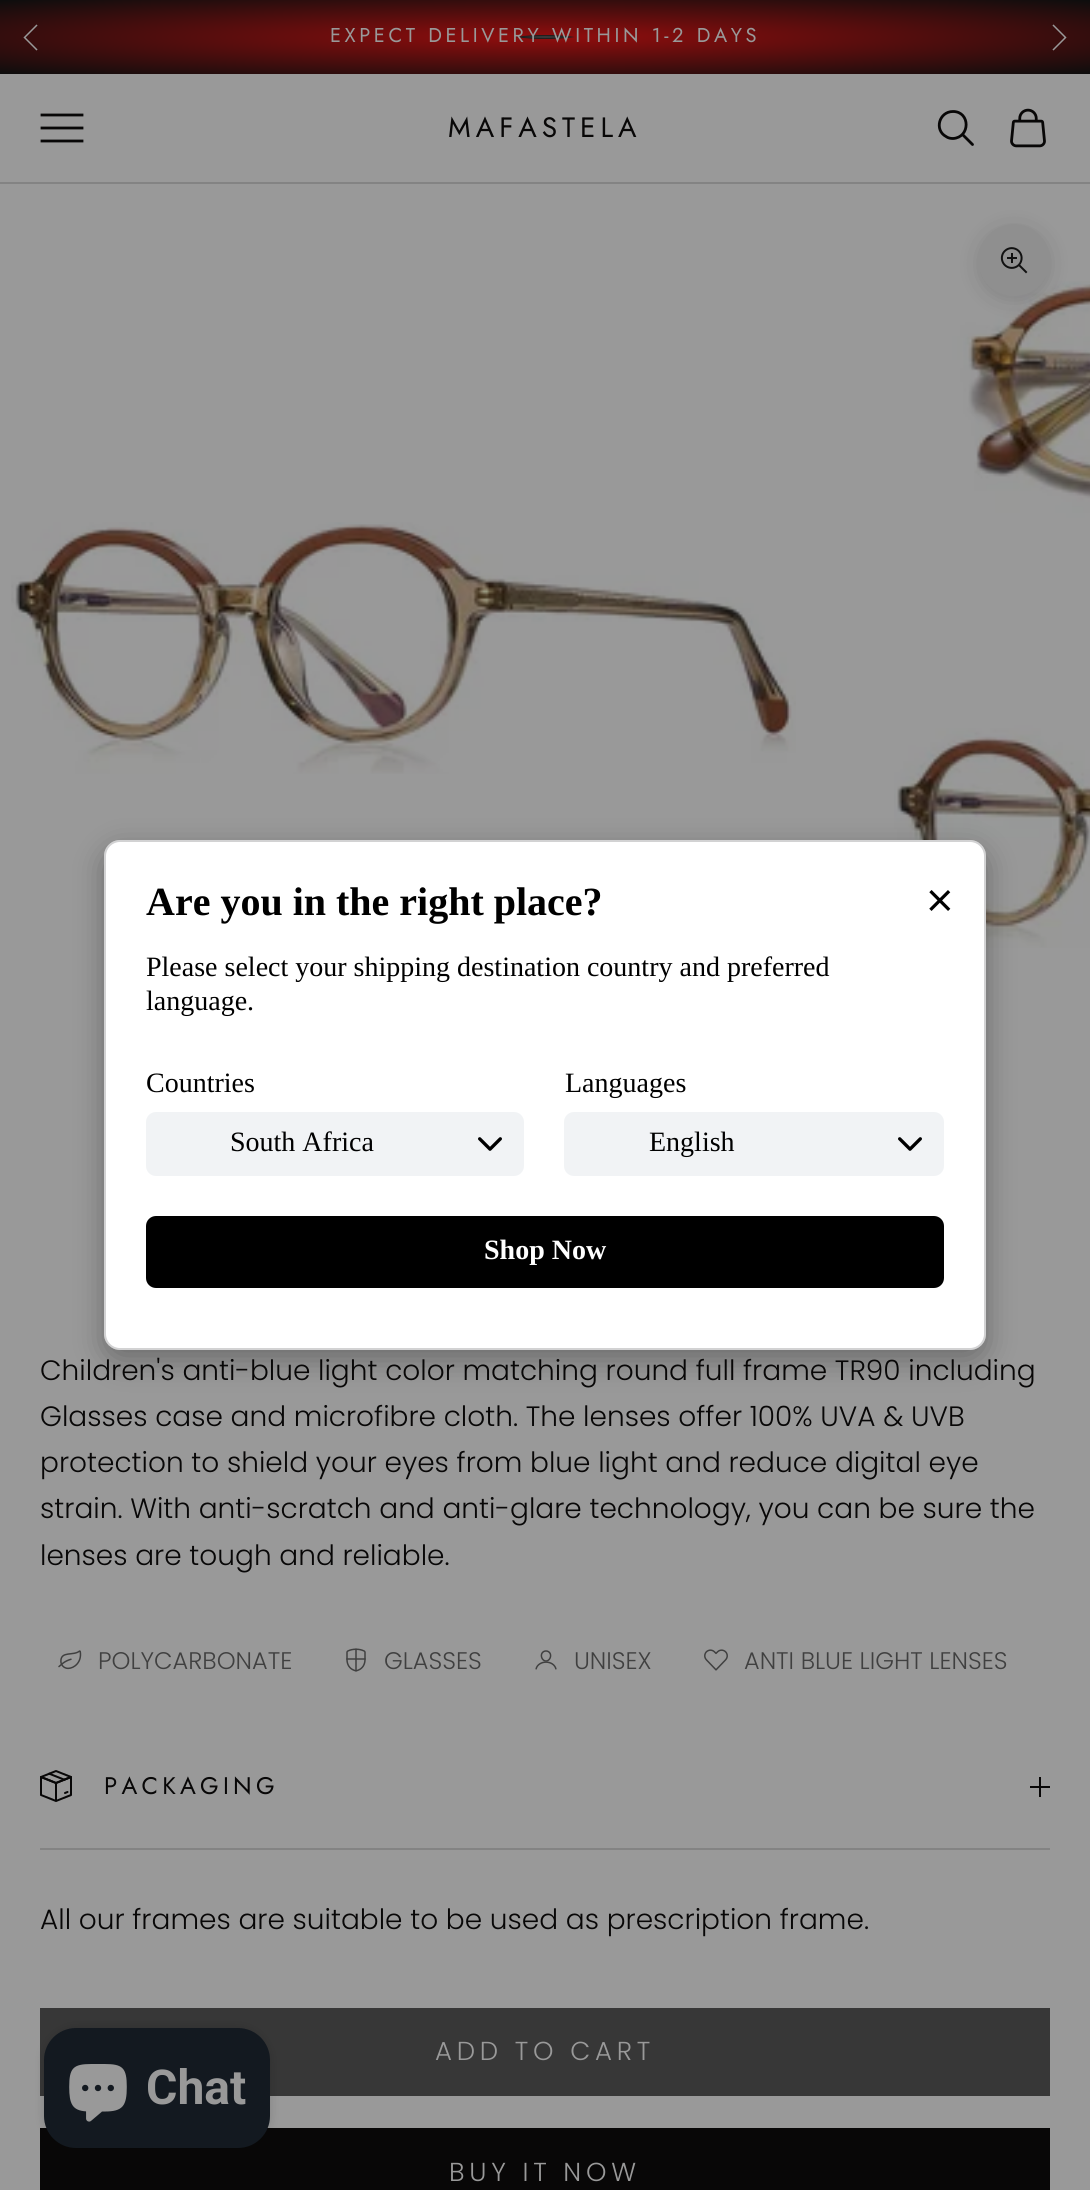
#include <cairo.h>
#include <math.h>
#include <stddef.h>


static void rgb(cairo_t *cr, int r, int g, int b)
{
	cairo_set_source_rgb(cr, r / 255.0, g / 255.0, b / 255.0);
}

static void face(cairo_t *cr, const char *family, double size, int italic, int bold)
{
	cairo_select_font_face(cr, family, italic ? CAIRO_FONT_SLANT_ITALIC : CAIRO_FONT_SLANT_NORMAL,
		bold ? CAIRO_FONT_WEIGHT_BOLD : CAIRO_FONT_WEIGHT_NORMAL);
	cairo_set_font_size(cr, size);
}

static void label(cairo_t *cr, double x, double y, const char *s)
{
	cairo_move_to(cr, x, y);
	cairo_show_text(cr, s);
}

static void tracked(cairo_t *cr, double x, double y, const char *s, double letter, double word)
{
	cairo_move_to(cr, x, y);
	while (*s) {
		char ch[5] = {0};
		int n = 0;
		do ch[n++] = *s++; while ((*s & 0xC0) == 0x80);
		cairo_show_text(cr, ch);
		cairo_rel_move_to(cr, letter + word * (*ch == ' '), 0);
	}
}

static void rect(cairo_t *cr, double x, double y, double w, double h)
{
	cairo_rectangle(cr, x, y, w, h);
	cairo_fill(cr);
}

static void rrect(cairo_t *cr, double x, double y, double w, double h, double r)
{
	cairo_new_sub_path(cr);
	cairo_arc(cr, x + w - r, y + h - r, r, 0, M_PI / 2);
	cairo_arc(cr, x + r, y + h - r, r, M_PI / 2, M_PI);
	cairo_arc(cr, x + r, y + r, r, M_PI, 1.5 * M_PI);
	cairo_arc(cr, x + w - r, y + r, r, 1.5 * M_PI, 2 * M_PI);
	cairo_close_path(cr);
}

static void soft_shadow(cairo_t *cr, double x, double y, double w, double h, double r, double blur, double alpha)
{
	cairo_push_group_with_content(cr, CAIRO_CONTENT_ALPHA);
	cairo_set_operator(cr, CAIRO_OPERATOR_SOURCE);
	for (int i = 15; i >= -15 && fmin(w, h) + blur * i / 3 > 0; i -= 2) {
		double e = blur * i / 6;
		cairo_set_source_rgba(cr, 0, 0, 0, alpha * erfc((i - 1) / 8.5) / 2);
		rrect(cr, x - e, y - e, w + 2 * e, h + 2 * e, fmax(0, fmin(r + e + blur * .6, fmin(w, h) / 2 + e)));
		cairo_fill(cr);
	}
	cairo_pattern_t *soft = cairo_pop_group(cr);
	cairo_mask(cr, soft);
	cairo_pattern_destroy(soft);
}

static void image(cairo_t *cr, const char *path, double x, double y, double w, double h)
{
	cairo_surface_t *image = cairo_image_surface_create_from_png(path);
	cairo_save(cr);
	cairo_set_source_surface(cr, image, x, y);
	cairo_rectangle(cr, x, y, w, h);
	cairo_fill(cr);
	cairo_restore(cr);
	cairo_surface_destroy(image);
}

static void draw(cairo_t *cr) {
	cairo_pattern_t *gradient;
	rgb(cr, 153, 153, 153);
	cairo_paint(cr);
	gradient = cairo_pattern_create_radial(0, 0, 0, 0, 0, 1);
	cairo_pattern_set_matrix(gradient, &(cairo_matrix_t){1.0 / 771, 0, 0, 1.0 / 52, -1.0 * 545 / 771, -1.0 * 37 / 52});
	cairo_pattern_add_color_stop_rgba(gradient, 0, 0.557, 0.055, 0.055, 1);
	cairo_pattern_add_color_stop_rgba(gradient, 0.01, 0.216, 0.216, 0.216, 1);
	cairo_pattern_add_color_stop_rgba(gradient, 0.03, 0.122, 0.118, 0.118, 1);
	cairo_pattern_add_color_stop_rgba(gradient, 0.04, 0.549, 0.051, 0.051, 1);
	cairo_pattern_add_color_stop_rgba(gradient, 1, 0.051, 0.051, 0.051, 1);
	cairo_set_source(cr, gradient);
	cairo_pattern_destroy(gradient);
	rect(cr, 0, 0, 1090, 74);
	cairo_new_path(cr);
	cairo_move_to(cr, 36.5, 25.5);
	cairo_line_to(cr, 24.5, 37.5);
	cairo_line_to(cr, 36.5, 49.5);
	rgb(cr, 153, 153, 153);
	cairo_set_line_width(cr, 1.5);
	cairo_set_line_cap(cr, CAIRO_LINE_CAP_SQUARE);
	cairo_stroke(cr);
	face(cr, "Jost", 20, 0, 0);
	tracked(cr, 330, 42, "EXPECT DELIVERY WITHIN 1-2 DAYS", 3.6, 0);
	cairo_new_path(cr);
	cairo_move_to(cr, 1053.5, 49.5);
	cairo_line_to(cr, 1065.5, 37.5);
	cairo_line_to(cr, 1053.5, 25.5);
	cairo_stroke(cr);
	rgb(cr, 131, 131, 131);
	rect(cr, 0, 182, 1090, 2);
	cairo_new_path(cr);
	cairo_move_to(cr, 42, 141);
	cairo_line_to(cr, 82, 141);
	cairo_move_to(cr, 42, 128);
	cairo_line_to(cr, 82, 128);
	cairo_move_to(cr, 42, 115);
	cairo_line_to(cr, 82, 115);
	rgb(cr, 8, 7, 7);
	cairo_set_line_width(cr, 2.8);
	cairo_stroke(cr);
	face(cr, "Jost", 28, 0, 0);
	tracked(cr, 448, 137, "MAFASTELA", 5, 0);
	cairo_new_path(cr);
	cairo_move_to(cr, 953, 111.5);
	cairo_curve_to(cr, 939, 111.5, 934, 130, 946, 136.5);
	cairo_curve_to(cr, 948, 138, 950.5, 138.5, 953, 138.5);
	cairo_curve_to(cr, 970.5, 137.5, 970.5, 111.5, 953, 111.5);
	cairo_close_path(cr);
	cairo_set_line_cap(cr, CAIRO_LINE_CAP_BUTT);
	cairo_stroke(cr);
	cairo_new_path(cr);
	cairo_move_to(cr, 963, 135);
	cairo_line_to(cr, 972.5, 144.5);
	cairo_set_line_cap(cr, CAIRO_LINE_CAP_ROUND);
	cairo_stroke(cr);
	image(cr, "image0.png", 1010, 108, 36, 40);
	image(cr, "image4.png", 894, 281, 196, 667);
	rgb(cr, 0, 0, 0);
	soft_shadow(cr, 104, 850, 882, 510, 16, 15, 0.3);
	rgb(cr, 255, 255, 255);
	rrect(cr, 104, 840, 882, 510, 16);
	cairo_fill(cr);
	rrect(cr, 105, 841, 880, 508, 15);
	cairo_set_source_rgba(cr, 0.125, 0.133, 0.137, 0.2);
	cairo_set_line_width(cr, 2);
	cairo_set_line_cap(cr, CAIRO_LINE_CAP_BUTT);
	cairo_stroke(cr);
	face(cr, "Liberation Serif", 40, 0, 1);
	rgb(cr, 0, 0, 0);
	label(cr, 146, 915, "Are you in the right place?");
	face(cr, "Poppins Light", 50, 0, 0);
	label(cr, 925, 919, "×");
	face(cr, "Liberation Serif", 28, 0, 0);
	label(cr, 146, 976, "Please select your shipping destination country and preferred");
	label(cr, 146, 1010, "language.");
	label(cr, 146, 1092, "Countries");
	rgb(cr, 241, 243, 245);
	rrect(cr, 146, 1112, 378, 64, 10);
	cairo_fill(cr);
	rgb(cr, 0, 0, 0);
	label(cr, 230, 1151, "South Africa");
	image(cr, "image1.png", 478, 1137, 24, 14);
	label(cr, 565, 1092, "Languages");
	rgb(cr, 241, 243, 245);
	rrect(cr, 564, 1112, 380, 64, 10);
	cairo_fill(cr);
	rgb(cr, 0, 0, 0);
	label(cr, 649, 1151, "English");
	image(cr, "image1.png", 898, 1137, 24, 14);
	rrect(cr, 146, 1216, 798, 72, 10);
	cairo_fill(cr);
	face(cr, "Liberation Serif", 28, 0, 1);
	rgb(cr, 255, 255, 255);
	label(cr, 484, 1259, "Shop Now");
	rgb(cr, 17, 17, 17);
	soft_shadow(cr, 978, 228, 72, 72, 36, 10, 0.15);
	rgb(cr, 143, 143, 143);
	cairo_arc(cr, 1014, 260, 36, 0, 2 * M_PI);
	cairo_fill(cr);
	image(cr, "image2.png", 1000, 247, 28, 27);
	image(cr, "image3.png", 11, 522, 785, 252);
	face(cr, "Poppins Light", 28, 0, 0);
	rgb(cr, 8, 7, 7);
	label(cr, 40, 1380, "Children's anti-blue light color matching round full frame TR90 including");
	label(cr, 40, 1426, "Glasses case and microfibre cloth. The lenses offer 100% UVA & UVB");
	label(cr, 40, 1472, "protection to shield your eyes from blue light and reduce digital eye");
	label(cr, 40, 1518, "strain. With anti-scratch and anti-glare technology, you can be sure the");
	label(cr, 40, 1565, "lenses are tough and reliable.");
	image(cr, "image5.png", 58, 1650, 24, 20);
	face(cr, "Poppins Light", 24, 0, 0);
	rgb(cr, 64, 64, 64);
	label(cr, 98, 1669, "POLYCARBONATE");
	image(cr, "image6.png", 346, 1648, 20, 24);
	label(cr, 384, 1669, "GLASSES");
	image(cr, "image7.png", 535, 1650, 22, 20);
	label(cr, 574, 1669, "UNISEX");
	image(cr, "image8.png", 704, 1649, 24, 22);
	label(cr, 744, 1669, "ANTI BLUE LIGHT LENSES");
	rgb(cr, 131, 131, 131);
	rect(cr, 40, 1848, 1010, 2);
	image(cr, "image9.png", 40, 1770, 32, 32);
	face(cr, "Jost", 24, 0, 0);
	rgb(cr, 8, 7, 7);
	tracked(cr, 104, 1794, "PACKAGING", 4.25, 0);
	rect(cr, 1039, 1777, 2, 20);
	rect(cr, 1030, 1786, 20, 2);
	face(cr, "Poppins Light", 28, 0, 0);
	label(cr, 40, 1929, "All our frames are suitable to be used as prescription frame.");
	rgb(cr, 55, 55, 55);
	cairo_rectangle(cr, 41, 2009, 1008, 86);
	cairo_fill_preserve(cr);
	cairo_stroke(cr);
	face(cr, "Poppins Light", 26, 0, 0);
	rgb(cr, 153, 153, 153);
	tracked(cr, 435, 2060, "ADD TO CART", 4.75, 0);
	rgb(cr, 8, 7, 7);
	cairo_rectangle(cr, 41, 2129, 1008, 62);
	cairo_fill_preserve(cr);
	cairo_stroke(cr);
	rgb(cr, 153, 153, 153);
	tracked(cr, 449, 2181, "BUY IT NOW", 4.75, 0);
	rgb(cr, 0, 0, 0);
	soft_shadow(cr, 44, 2028, 226, 120, 32, 5, 0.15);
	rgb(cr, 19, 25, 32);
	rrect(cr, 44, 2028, 226, 120, 32);
	cairo_fill(cr);
	image(cr, "image10.png", 69, 2064, 58, 58);
	face(cr, "Roboto", 48, 0, 1);
	rgb(cr, 153, 153, 153);
	label(cr, 146, 2104, "Chat");
}

int main(void) {
	cairo_surface_t *surface = cairo_image_surface_create(CAIRO_FORMAT_RGB24, 1090, 2190);
	cairo_t *cr = cairo_create(surface);
	cairo_font_options_t *options = cairo_font_options_create();
	cairo_font_options_set_hint_metrics(options, CAIRO_HINT_METRICS_OFF);
	cairo_font_options_set_hint_style(options, CAIRO_HINT_STYLE_NONE);
	cairo_set_font_options(cr, options);
	cairo_set_miter_limit(cr, 4);
	draw(cr);
	cairo_surface_write_to_png(surface, "render.png");
	cairo_font_options_destroy(options);
	cairo_destroy(cr);
	cairo_surface_destroy(surface);
	return 0;
}
